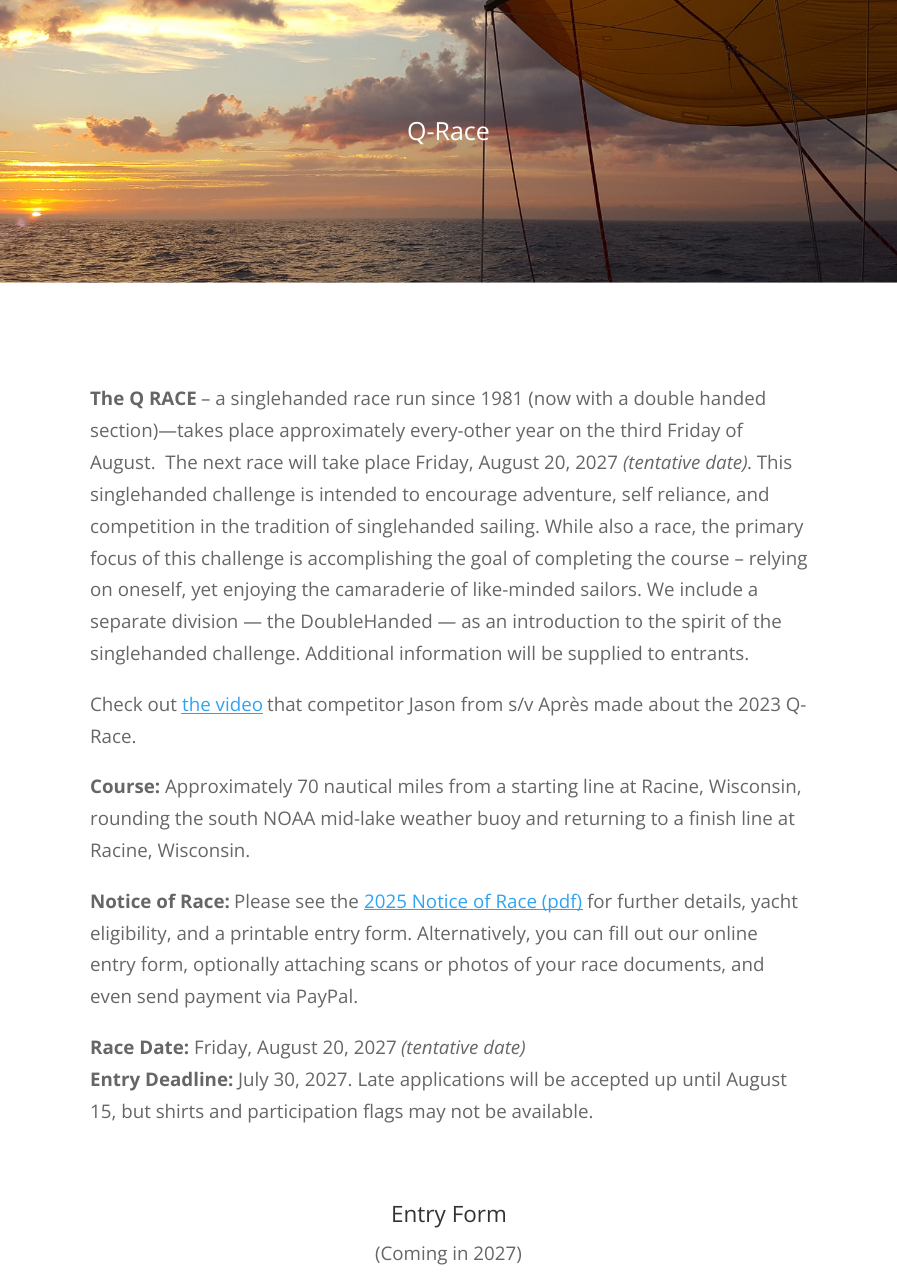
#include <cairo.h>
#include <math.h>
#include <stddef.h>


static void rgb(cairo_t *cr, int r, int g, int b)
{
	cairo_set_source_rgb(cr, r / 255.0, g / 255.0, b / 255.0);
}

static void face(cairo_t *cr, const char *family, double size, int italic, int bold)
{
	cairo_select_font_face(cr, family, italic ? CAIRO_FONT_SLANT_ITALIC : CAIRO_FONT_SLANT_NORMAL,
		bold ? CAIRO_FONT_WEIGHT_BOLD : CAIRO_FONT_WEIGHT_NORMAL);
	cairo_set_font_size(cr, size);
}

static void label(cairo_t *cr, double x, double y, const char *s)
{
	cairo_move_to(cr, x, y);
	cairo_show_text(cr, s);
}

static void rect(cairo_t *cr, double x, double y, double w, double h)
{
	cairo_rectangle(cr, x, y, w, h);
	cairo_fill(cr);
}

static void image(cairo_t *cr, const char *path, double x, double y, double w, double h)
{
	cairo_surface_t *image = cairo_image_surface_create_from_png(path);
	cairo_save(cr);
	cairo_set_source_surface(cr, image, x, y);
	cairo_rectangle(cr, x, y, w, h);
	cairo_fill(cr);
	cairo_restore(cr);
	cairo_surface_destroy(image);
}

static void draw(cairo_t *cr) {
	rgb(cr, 255, 255, 255);
	cairo_paint(cr);
	image(cr, "image0.png", 0, 0, 897, 283);
	face(cr, "Open Sans", 25, 0, 0);
	rgb(cr, 255, 255, 255);
	label(cr, 407, 140, "Q-Race");
	face(cr, "Open Sans", 18.75, 0, 1);
	rgb(cr, 102, 102, 102);
	label(cr, 90, 405, "The Q RACE");
	face(cr, "Open Sans", 18.75, 0, 0);
	label(cr, 201, 405, "– a singlehanded race run since 1981 (now with a double handed");
	label(cr, 90, 437, "section)—takes place approximately every-other year on the third Friday of");
	label(cr, 90, 469, "August.  The next race will take place Friday, August 20, 2027");
	face(cr, "Open Sans", 18.75, 1, 0);
	label(cr, 623, 469, "(tentative date)");
	face(cr, "Open Sans", 18.75, 0, 0);
	label(cr, 747, 469, ". This");
	label(cr, 90, 501, "singlehanded challenge is intended to encourage adventure, self reliance, and");
	label(cr, 90, 533, "competition in the tradition of singlehanded sailing. While also a race, the primary");
	label(cr, 90, 565, "focus of this challenge is accomplishing the goal of completing the course – relying");
	label(cr, 90, 596, "on oneself, yet enjoying the camaraderie of like-minded sailors. We include a");
	label(cr, 90, 628, "separate division — the DoubleHanded — as an introduction to the spirit of the");
	label(cr, 90, 660, "singlehanded challenge. Additional information will be supplied to entrants.");
	label(cr, 90, 711, "Check out");
	rgb(cr, 46, 163, 242);
	label(cr, 182, 711, "the video");
	rect(cr, 181, 713, 82, 1);
	rgb(cr, 102, 102, 102);
	label(cr, 267, 711, "that competitor Jason from s/v Après made about the 2023 Q-");
	label(cr, 90, 743, "Race.");
	face(cr, "Open Sans", 18.75, 0, 1);
	label(cr, 90, 793, "Course:");
	face(cr, "Open Sans", 18.75, 0, 0);
	label(cr, 165, 793, "Approximately 70 nautical miles from a starting line at Racine, Wisconsin,");
	label(cr, 90, 825, "rounding the south NOAA mid-lake weather buoy and returning to a finish line at");
	label(cr, 90, 857, "Racine, Wisconsin.");
	face(cr, "Open Sans", 18.75, 0, 1);
	label(cr, 90, 908, "Notice of Race:");
	face(cr, "Open Sans", 18.75, 0, 0);
	label(cr, 234, 908, "Please see the");
	rgb(cr, 46, 163, 242);
	rect(cr, 364, 909, 219, 1);
	label(cr, 364, 908, "2025 Notice of Race (pdf)");
	rgb(cr, 102, 102, 102);
	label(cr, 587, 908, "for further details, yacht");
	label(cr, 90, 940, "eligibility, and a printable entry form. Alternatively, you can fill out our online");
	label(cr, 90, 971, "entry form, optionally attaching scans or photos of your race documents, and");
	label(cr, 90, 1003, "even send payment via PayPal.");
	face(cr, "Open Sans", 18.75, 0, 1);
	label(cr, 90, 1054, "Race Date:");
	face(cr, "Open Sans", 18.75, 0, 0);
	label(cr, 194, 1054, "Friday, August 20, 2027");
	face(cr, "Open Sans", 18.75, 1, 0);
	label(cr, 401, 1054, "(tentative date)");
	face(cr, "Open Sans", 18.75, 0, 1);
	label(cr, 90, 1086, "Entry Deadline:");
	face(cr, "Open Sans", 18.75, 0, 0);
	label(cr, 238, 1086, "July 30, 2027. Late applications will be accepted up until August");
	label(cr, 90, 1118, "15, but shirts and participation flags may not be available.");
	face(cr, "Open Sans", 22.5, 0, 0);
	rgb(cr, 51, 51, 51);
	label(cr, 391, 1222, "Entry Form");
	face(cr, "Open Sans", 18.75, 0, 0);
	rgb(cr, 102, 102, 102);
	label(cr, 375, 1260, "(Coming in 2027)");
}

int main(void) {
	cairo_surface_t *surface = cairo_image_surface_create(CAIRO_FORMAT_RGB24, 897, 1284);
	cairo_t *cr = cairo_create(surface);
	cairo_font_options_t *options = cairo_font_options_create();
	cairo_font_options_set_hint_metrics(options, CAIRO_HINT_METRICS_OFF);
	cairo_font_options_set_hint_style(options, CAIRO_HINT_STYLE_NONE);
	cairo_set_font_options(cr, options);
	cairo_set_miter_limit(cr, 4);
	draw(cr);
	cairo_surface_write_to_png(surface, "render.png");
	cairo_font_options_destroy(options);
	cairo_destroy(cr);
	cairo_surface_destroy(surface);
	return 0;
}
